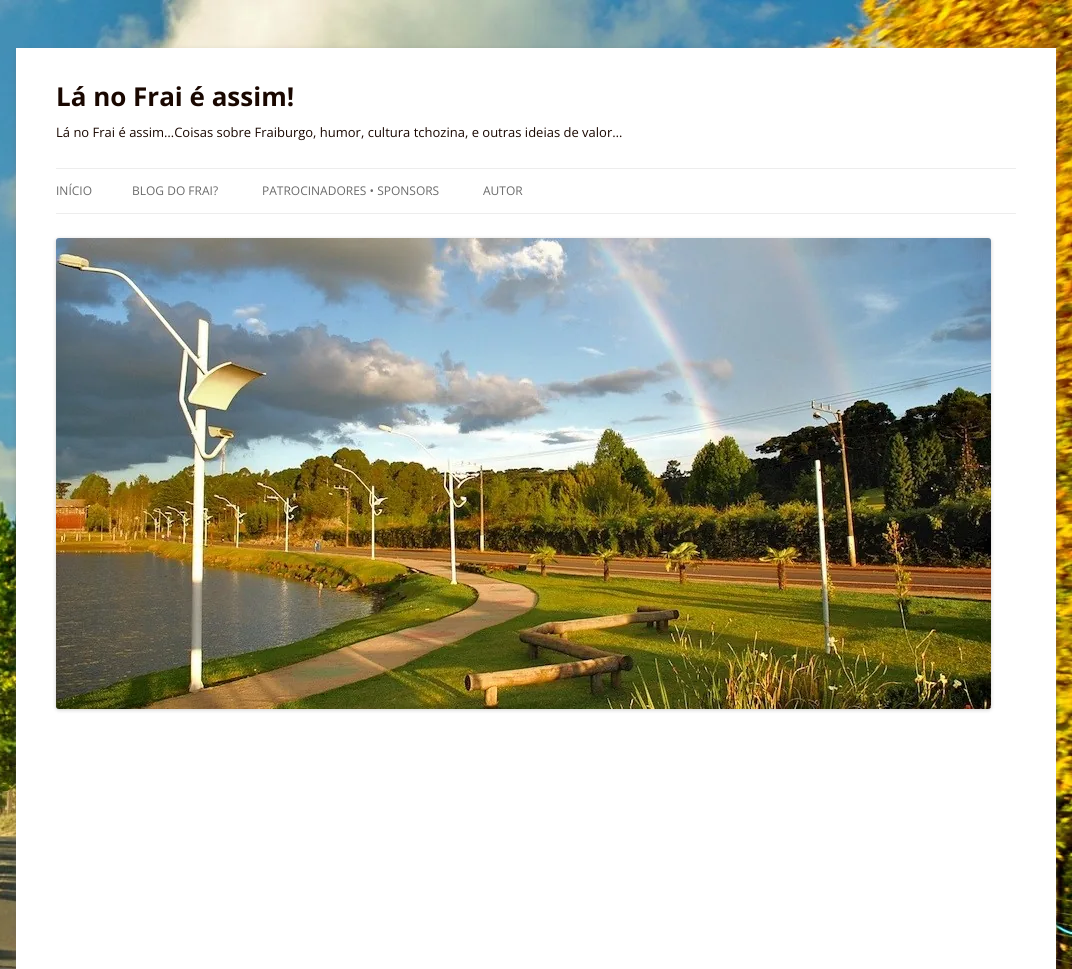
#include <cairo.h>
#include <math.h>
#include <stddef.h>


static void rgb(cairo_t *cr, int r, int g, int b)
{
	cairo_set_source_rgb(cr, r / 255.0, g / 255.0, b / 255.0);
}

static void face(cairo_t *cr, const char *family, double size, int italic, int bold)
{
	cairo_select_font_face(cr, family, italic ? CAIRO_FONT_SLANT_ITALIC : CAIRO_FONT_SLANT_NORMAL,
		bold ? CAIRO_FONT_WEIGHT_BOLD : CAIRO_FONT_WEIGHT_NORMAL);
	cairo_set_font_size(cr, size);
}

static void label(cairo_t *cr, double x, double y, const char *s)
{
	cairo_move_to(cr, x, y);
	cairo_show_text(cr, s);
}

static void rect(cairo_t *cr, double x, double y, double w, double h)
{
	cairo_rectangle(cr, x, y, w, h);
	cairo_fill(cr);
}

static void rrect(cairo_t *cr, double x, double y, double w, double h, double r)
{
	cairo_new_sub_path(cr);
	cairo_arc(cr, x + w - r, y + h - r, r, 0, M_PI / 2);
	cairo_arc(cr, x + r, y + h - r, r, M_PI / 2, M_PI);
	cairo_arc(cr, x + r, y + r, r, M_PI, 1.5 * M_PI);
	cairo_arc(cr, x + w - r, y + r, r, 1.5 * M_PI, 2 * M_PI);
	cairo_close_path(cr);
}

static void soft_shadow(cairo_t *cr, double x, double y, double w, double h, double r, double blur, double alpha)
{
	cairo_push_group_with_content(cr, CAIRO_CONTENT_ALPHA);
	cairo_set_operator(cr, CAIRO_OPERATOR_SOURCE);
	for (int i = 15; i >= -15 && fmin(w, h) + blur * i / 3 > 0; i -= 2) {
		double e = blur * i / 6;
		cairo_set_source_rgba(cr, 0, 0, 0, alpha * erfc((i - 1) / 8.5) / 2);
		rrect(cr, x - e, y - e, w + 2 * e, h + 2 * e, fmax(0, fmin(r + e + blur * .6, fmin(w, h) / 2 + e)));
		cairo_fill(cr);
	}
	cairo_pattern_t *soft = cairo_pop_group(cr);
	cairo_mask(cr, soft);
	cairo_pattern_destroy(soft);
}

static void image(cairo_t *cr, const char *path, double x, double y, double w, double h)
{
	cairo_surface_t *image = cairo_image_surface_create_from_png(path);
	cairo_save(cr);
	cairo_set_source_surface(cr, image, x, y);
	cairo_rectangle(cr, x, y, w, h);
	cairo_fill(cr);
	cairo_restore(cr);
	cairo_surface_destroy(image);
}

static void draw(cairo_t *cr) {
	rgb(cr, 255, 255, 255);
	cairo_paint(cr);
	image(cr, "image0.png", 0, 0, 1072, 969);
	rgb(cr, 100, 100, 100);
	soft_shadow(cr, 16, 50, 1040, 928, 0, 3, 0.3);
	rgb(cr, 255, 255, 255);
	rect(cr, 16, 48, 1040, 921);
	face(cr, "Open Sans", 26, 0, 1);
	rgb(cr, 25, 7, 0);
	label(cr, 56, 106, "Lá no Frai é assim!");
	face(cr, "Open Sans", 13, 0, 0);
	label(cr, 56, 137, "Lá no Frai é assim…Coisas sobre Fraiburgo, humor, cultura tchozina, e outras ideias de valor…");
	rgb(cr, 237, 237, 237);
	rect(cr, 56, 168, 960, 1);
	rect(cr, 56, 213, 960, 1);
	face(cr, "Open Sans", 12, 0, 0);
	rgb(cr, 106, 106, 106);
	label(cr, 56, 195, "INÍCIO");
	label(cr, 132, 195, "BLOG DO FRAI?");
	label(cr, 262, 195, "PATROCINADORES • SPONSORS");
	label(cr, 483, 195, "AUTOR");
	rgb(cr, 0, 0, 0);
	soft_shadow(cr, 56, 239, 935, 471, 3, 2, 0.2);
	image(cr, "image1.png", 56, 238, 935, 471);
}

int main(void) {
	cairo_surface_t *surface = cairo_image_surface_create(CAIRO_FORMAT_RGB24, 1072, 969);
	cairo_t *cr = cairo_create(surface);
	cairo_font_options_t *options = cairo_font_options_create();
	cairo_font_options_set_hint_metrics(options, CAIRO_HINT_METRICS_OFF);
	cairo_font_options_set_hint_style(options, CAIRO_HINT_STYLE_NONE);
	cairo_set_font_options(cr, options);
	cairo_set_miter_limit(cr, 4);
	draw(cr);
	cairo_surface_write_to_png(surface, "render.png");
	cairo_font_options_destroy(options);
	cairo_destroy(cr);
	cairo_surface_destroy(surface);
	return 0;
}
